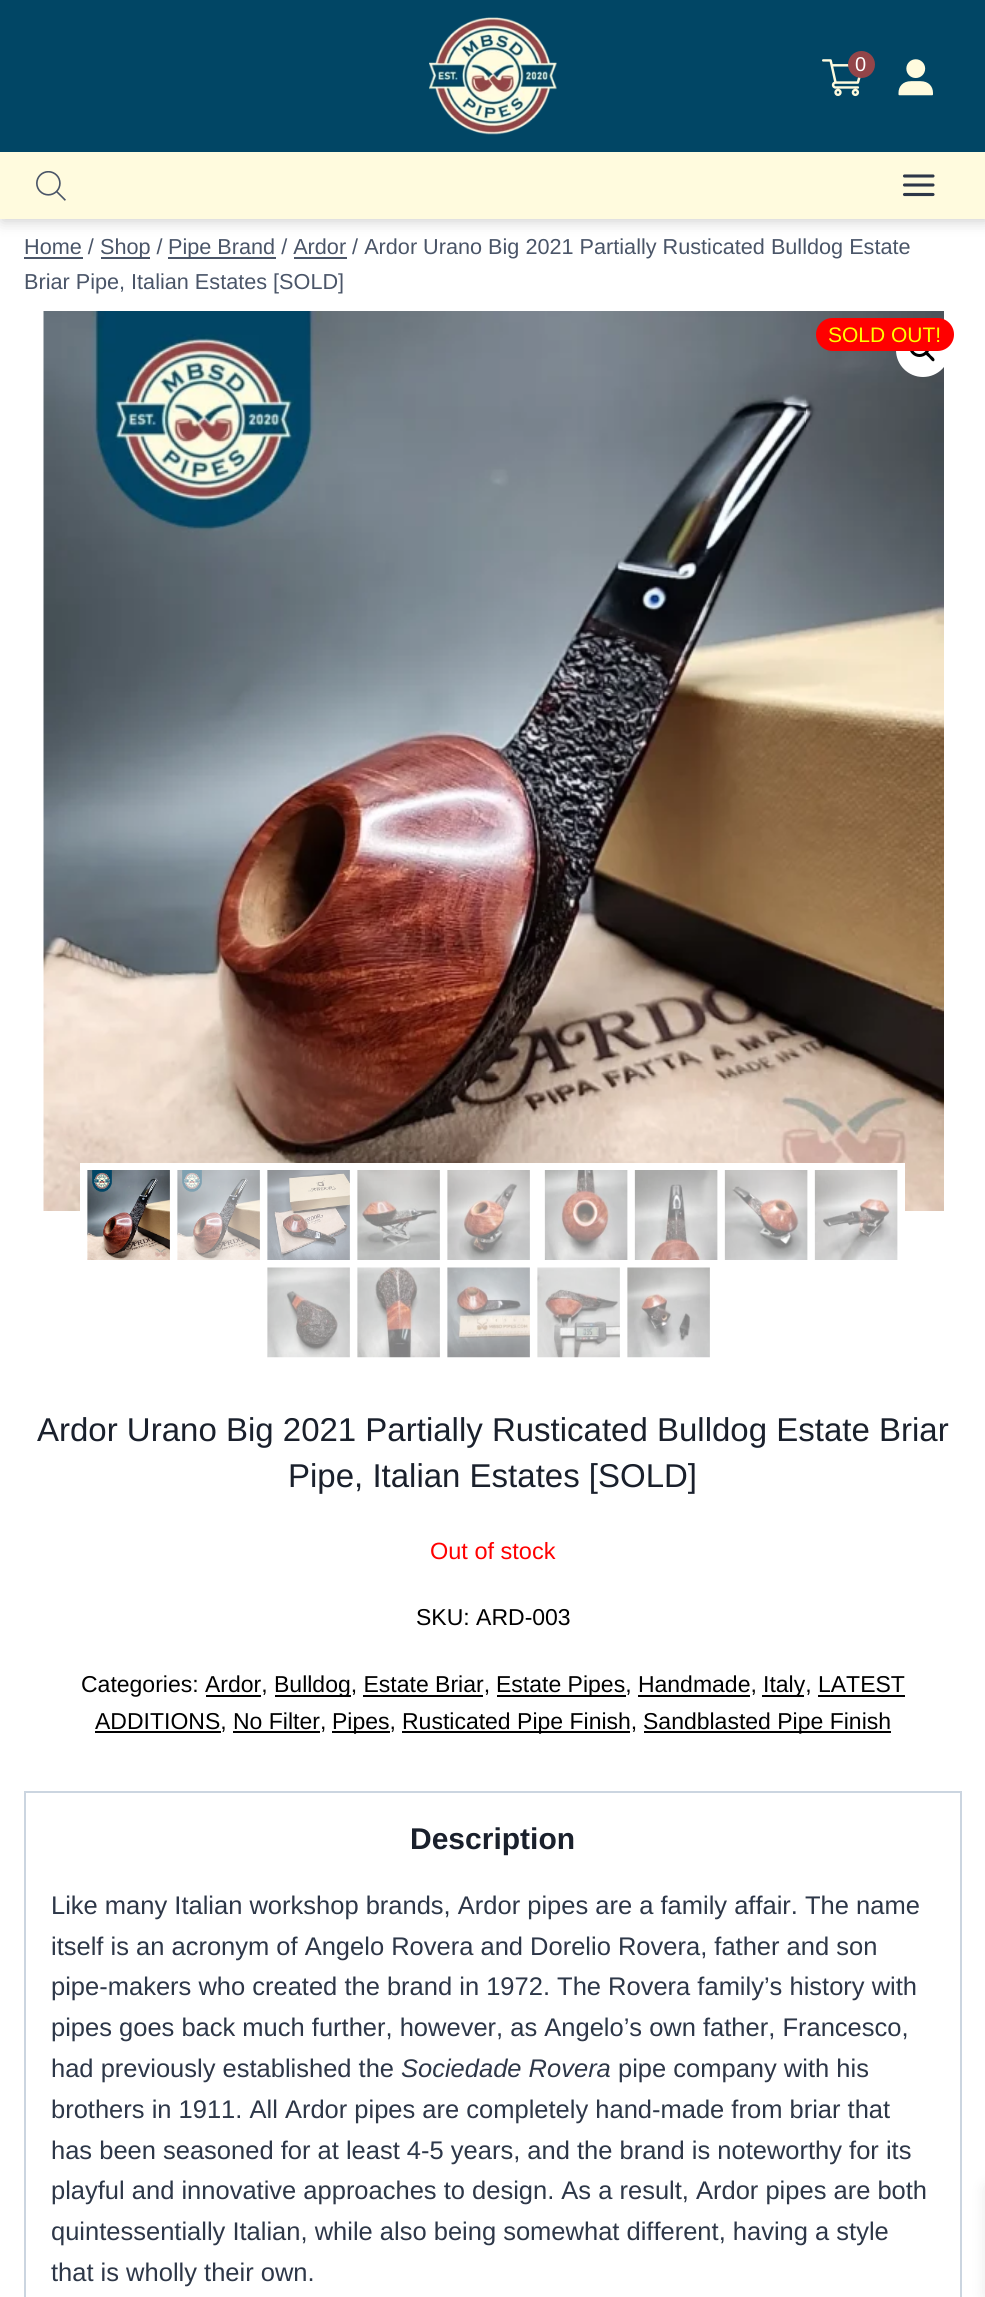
#include <cairo.h>
#include <math.h>
#include <stddef.h>


static void rgb(cairo_t *cr, int r, int g, int b)
{
	cairo_set_source_rgb(cr, r / 255.0, g / 255.0, b / 255.0);
}

static void face(cairo_t *cr, const char *family, double size, int italic, int bold)
{
	cairo_select_font_face(cr, family, italic ? CAIRO_FONT_SLANT_ITALIC : CAIRO_FONT_SLANT_NORMAL,
		bold ? CAIRO_FONT_WEIGHT_BOLD : CAIRO_FONT_WEIGHT_NORMAL);
	cairo_set_font_size(cr, size);
}

static void label(cairo_t *cr, double x, double y, const char *s)
{
	cairo_move_to(cr, x, y);
	cairo_show_text(cr, s);
}

static void rect(cairo_t *cr, double x, double y, double w, double h)
{
	cairo_rectangle(cr, x, y, w, h);
	cairo_fill(cr);
}

static void rrect(cairo_t *cr, double x, double y, double w, double h, double r)
{
	cairo_new_sub_path(cr);
	cairo_arc(cr, x + w - r, y + h - r, r, 0, M_PI / 2);
	cairo_arc(cr, x + r, y + h - r, r, M_PI / 2, M_PI);
	cairo_arc(cr, x + r, y + r, r, M_PI, 1.5 * M_PI);
	cairo_arc(cr, x + w - r, y + r, r, 1.5 * M_PI, 2 * M_PI);
	cairo_close_path(cr);
}

static void soft_shadow(cairo_t *cr, double x, double y, double w, double h, double r, double blur, double alpha)
{
	cairo_push_group_with_content(cr, CAIRO_CONTENT_ALPHA);
	cairo_set_operator(cr, CAIRO_OPERATOR_SOURCE);
	for (int i = 15; i >= -15 && fmin(w, h) + blur * i / 3 > 0; i -= 2) {
		double e = blur * i / 6;
		cairo_set_source_rgba(cr, 0, 0, 0, alpha * erfc((i - 1) / 8.5) / 2);
		rrect(cr, x - e, y - e, w + 2 * e, h + 2 * e, fmax(0, fmin(r + e + blur * .6, fmin(w, h) / 2 + e)));
		cairo_fill(cr);
	}
	cairo_pattern_t *soft = cairo_pop_group(cr);
	cairo_mask(cr, soft);
	cairo_pattern_destroy(soft);
}

static void image(cairo_t *cr, const char *path, double x, double y, double w, double h)
{
	cairo_surface_t *image = cairo_image_surface_create_from_png(path);
	cairo_save(cr);
	cairo_set_source_surface(cr, image, x, y);
	cairo_rectangle(cr, x, y, w, h);
	cairo_fill(cr);
	cairo_restore(cr);
	cairo_surface_destroy(image);
}

static void draw(cairo_t *cr) {
	rgb(cr, 255, 255, 255);
	cairo_paint(cr);
	rgb(cr, 0, 0, 0);
	soft_shadow(cr, 2, 2, 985, 219, 0, 7.5, 0.2);
	rgb(cr, 1, 70, 101);
	rect(cr, 0, 0, 985, 152);
	image(cr, "image0.png", 429, 17, 128, 118);
	image(cr, "image1.png", 822, 59, 39, 38);
	rgb(cr, 147, 69, 73);
	cairo_arc(cr, 861.5, 64.5, 13.5, 0, 2 * M_PI);
	cairo_fill(cr);
	face(cr, "Liberation Sans", 20, 0, 0);
	rgb(cr, 255, 255, 255);
	label(cr, 855, 71, "0");
	image(cr, "image2.png", 898, 59, 35, 37);
	rgb(cr, 255, 251, 222);
	rect(cr, 0, 152, 985, 67);
	image(cr, "image3.png", 36, 171, 30, 30);
	cairo_new_path(cr);
	cairo_move_to(cr, 904.5, 185);
	cairo_line_to(cr, 933, 185);
	cairo_move_to(cr, 904.5, 176);
	cairo_line_to(cr, 933, 176);
	cairo_move_to(cr, 904.5, 194.5);
	cairo_line_to(cr, 933, 194.5);
	rgb(cr, 45, 55, 72);
	cairo_set_line_width(cr, 3.1);
	cairo_set_line_cap(cr, CAIRO_LINE_CAP_ROUND);
	cairo_set_line_join(cr, CAIRO_LINE_JOIN_ROUND);
	cairo_stroke(cr);
	face(cr, "Liberation Sans", 21.65, 0, 0);
	rgb(cr, 74, 85, 104);
	label(cr, 24, 254, "Home /");
	rect(cr, 24, 257, 59, 2);
	rect(cr, 101, 257, 49, 2);
	label(cr, 100, 254, "Shop /");
	rect(cr, 168, 257, 108, 2);
	label(cr, 168, 254, "Pipe Brand / Ardor / Ardor Urano Big 2021 Partially Rusticated Bulldog Estate");
	rect(cr, 294, 257, 53, 2);
	label(cr, 24, 289, "Briar Pipe, Italian Estates [SOLD]");
	image(cr, "image4.png", 43, 311, 901, 900);
	rgb(cr, 255, 255, 255);
	cairo_arc(cr, 923, 350, 27, 0, 2 * M_PI);
	cairo_fill(cr);
	cairo_arc(cr, 919.5, 346.5, 9, 0, 2 * M_PI);
	rgb(cr, 0, 0, 0);
	cairo_set_line_width(cr, 3);
	cairo_set_line_cap(cr, CAIRO_LINE_CAP_BUTT);
	cairo_set_line_join(cr, CAIRO_LINE_JOIN_MITER);
	cairo_stroke(cr);
	cairo_new_path(cr);
	cairo_move_to(cr, 926, 352.5);
	cairo_curve_to(cr, 927.5, 350.5, 930, 354.5, 931, 355.5);
	cairo_curve_to(cr, 932, 356.5, 936, 359, 934, 361);
	cairo_curve_to(cr, 932.5, 362.5, 930, 358.5, 929, 357.5);
	cairo_curve_to(cr, 928, 356.5, 924, 354, 926, 352.5);
	cairo_close_path(cr);
	cairo_fill(cr);
	rgb(cr, 255, 0, 0);
	rrect(cr, 816, 318, 138, 33, 16.5);
	cairo_fill(cr);
	face(cr, "Liberation Sans", 21, 0, 0);
	rgb(cr, 255, 255, 0);
	label(cr, 828, 342, "SOLD OUT!");
	rgb(cr, 255, 255, 255);
	rect(cr, 80, 1163, 825, 48);
	image(cr, "image5.png", 87, 1170, 83, 90);
	image(cr, "image6.png", 177, 1170, 83, 90);
	image(cr, "image7.png", 267, 1170, 83, 90);
	image(cr, "image8.png", 357, 1170, 83, 90);
	image(cr, "image9.png", 447, 1170, 83, 90);
	image(cr, "image10.png", 544, 1170, 84, 90);
	image(cr, "image11.png", 634, 1170, 84, 90);
	image(cr, "image12.png", 724, 1170, 84, 90);
	image(cr, "image13.png", 814, 1170, 84, 90);
	image(cr, "image14.png", 267, 1267, 83, 91);
	image(cr, "image15.png", 357, 1267, 83, 91);
	image(cr, "image16.png", 447, 1267, 83, 91);
	image(cr, "image17.png", 537, 1267, 83, 91);
	image(cr, "image18.png", 627, 1267, 83, 91);
	face(cr, "Liberation Sans", 33, 0, 0);
	rgb(cr, 26, 32, 44);
	label(cr, 37, 1441, "Ardor Urano Big 2021 Partially Rusticated Bulldog Estate Briar");
	label(cr, 288, 1487, "Pipe, Italian Estates [SOLD]");
	face(cr, "Liberation Sans", 23.5, 0, 0);
	rgb(cr, 255, 0, 0);
	label(cr, 430, 1559, "Out of stock");
	face(cr, "Liberation Sans", 23, 0, 0);
	rgb(cr, 0, 0, 0);
	label(cr, 416, 1625, "SKU: ARD-003");
	label(cr, 81, 1692, "Categories: Ardor,");
	rect(cr, 275, 1695, 76, 2);
	label(cr, 274, 1692, "Bulldog, Estate Briar,");
	rect(cr, 497, 1695, 129, 2);
	label(cr, 496, 1692, "Estate Pipes, Handmade,");
	rect(cr, 762, 1695, 42, 2);
	label(cr, 763, 1692, "Italy, LATEST");
	rect(cr, 206, 1695, 55, 2);
	rect(cr, 363, 1695, 120, 2);
	rect(cr, 638, 1695, 112, 2);
	rect(cr, 95, 1731, 126, 2);
	label(cr, 95, 1729, "ADDITIONS, No Filter,");
	rect(cr, 818, 1695, 87, 2);
	rect(cr, 332, 1731, 58, 2);
	label(cr, 332, 1729, "Pipes,");
	rect(cr, 402, 1731, 228, 2);
	label(cr, 402, 1729, "Rusticated Pipe Finish,");
	rect(cr, 644, 1731, 247, 2);
	label(cr, 643, 1729, "Sandblasted Pipe Finish");
	rect(cr, 233, 1731, 87, 2);
	cairo_rectangle(cr, 25, 1792, 936, 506);
	rgb(cr, 203, 213, 224);
	cairo_set_line_width(cr, 2);
	cairo_stroke(cr);
	face(cr, "Liberation Sans", 30, 0, 1);
	rgb(cr, 26, 32, 44);
	label(cr, 410, 1849, "Description");
	face(cr, "Liberation Sans", 25.5, 0, 0);
	rgb(cr, 45, 55, 72);
	label(cr, 51, 1914, "Like many Italian workshop brands, Ardor pipes are a family affair. The name");
	label(cr, 51, 1955, "itself is an acronym of Angelo Rovera and Dorelio Rovera, father and son");
	label(cr, 51, 1995, "pipe-makers who created the brand in 1972. The Rovera family’s history with");
	label(cr, 51, 2036, "pipes goes back much further, however, as Angelo’s own father, Francesco,");
	label(cr, 51, 2077, "had previously established the");
	face(cr, "Liberation Sans", 25.5, 1, 0);
	label(cr, 401, 2077, "Sociedade Rovera");
	face(cr, "Liberation Sans", 25.5, 0, 0);
	label(cr, 618, 2077, "pipe company with his");
	label(cr, 51, 2118, "brothers in 1911. All Ardor pipes are completely hand-made from briar that");
	label(cr, 51, 2159, "has been seasoned for at least 4-5 years, and the brand is noteworthy for its");
	label(cr, 51, 2199, "playful and innovative approaches to design. As a result, Ardor pipes are both");
	label(cr, 51, 2240, "quintessentially Italian, while also being somewhat different, having a style");
	label(cr, 51, 2281, "that is wholly their own.");
	rgb(cr, 0, 0, 0);
	soft_shadow(cr, 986, 2187, 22, 110, 0, 7.5, 0.1);
}

int main(void) {
	cairo_surface_t *surface = cairo_image_surface_create(CAIRO_FORMAT_RGB24, 985, 2297);
	cairo_t *cr = cairo_create(surface);
	cairo_font_options_t *options = cairo_font_options_create();
	cairo_font_options_set_hint_metrics(options, CAIRO_HINT_METRICS_OFF);
	cairo_font_options_set_hint_style(options, CAIRO_HINT_STYLE_NONE);
	cairo_set_font_options(cr, options);
	cairo_set_miter_limit(cr, 4);
	draw(cr);
	cairo_surface_write_to_png(surface, "render.png");
	cairo_font_options_destroy(options);
	cairo_destroy(cr);
	cairo_surface_destroy(surface);
	return 0;
}
